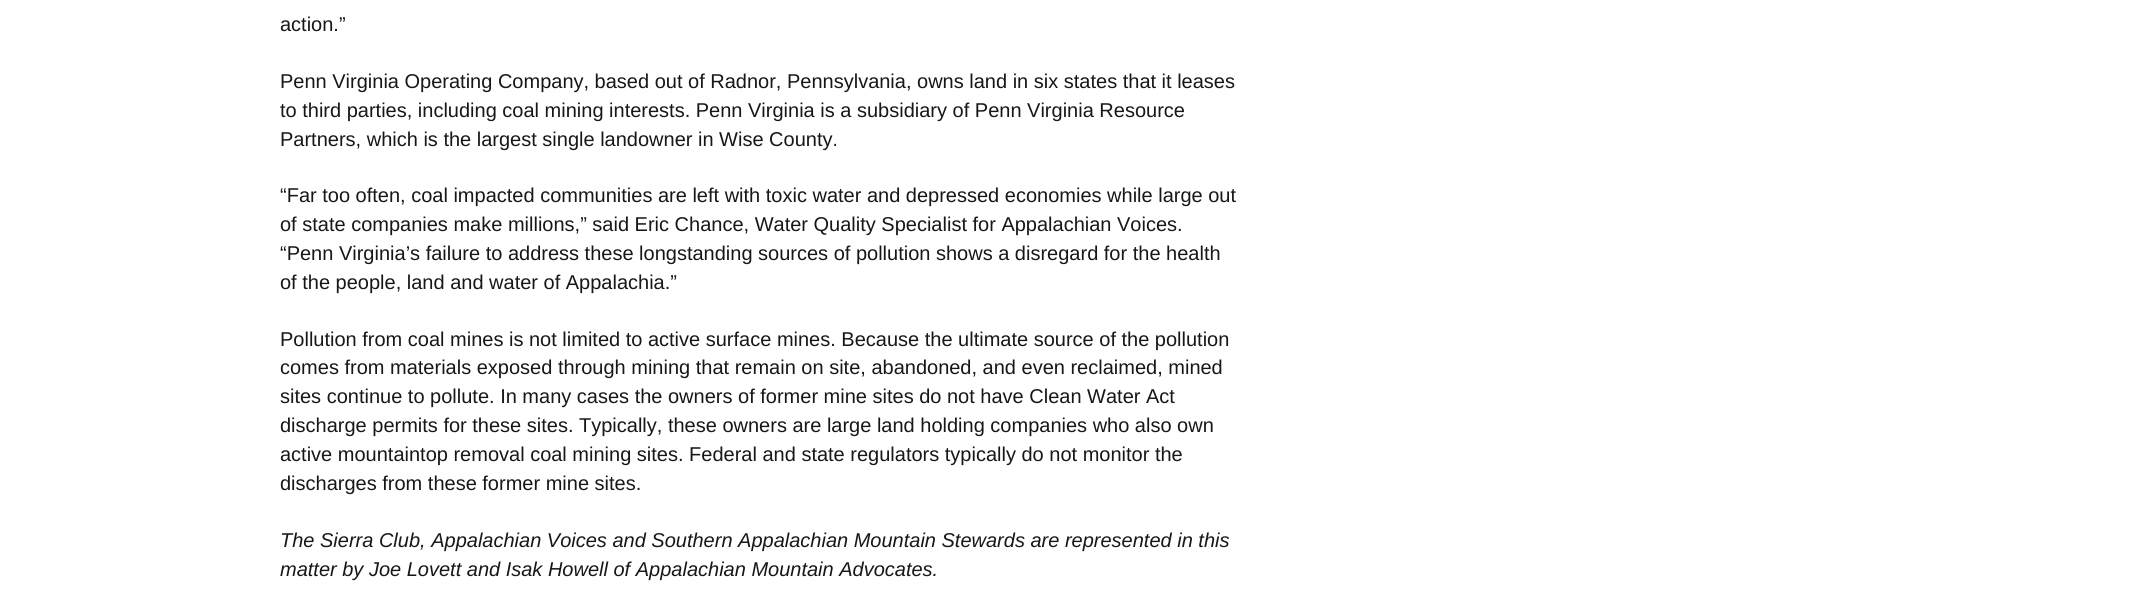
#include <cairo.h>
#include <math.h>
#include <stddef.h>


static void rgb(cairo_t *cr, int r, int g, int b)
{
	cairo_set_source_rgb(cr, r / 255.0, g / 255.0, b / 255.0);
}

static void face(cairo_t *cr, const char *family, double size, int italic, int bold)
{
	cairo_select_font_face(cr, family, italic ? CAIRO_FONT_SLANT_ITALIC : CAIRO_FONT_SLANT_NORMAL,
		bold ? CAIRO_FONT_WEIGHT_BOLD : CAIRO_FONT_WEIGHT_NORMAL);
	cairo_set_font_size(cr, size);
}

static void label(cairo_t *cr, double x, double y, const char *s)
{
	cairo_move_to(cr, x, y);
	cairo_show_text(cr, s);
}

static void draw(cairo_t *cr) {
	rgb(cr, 255, 255, 255);
	cairo_paint(cr);
	face(cr, "Liberation Sans", 20, 0, 0);
	rgb(cr, 23, 23, 23);
	label(cr, 280, 31, "action.”");
	label(cr, 280, 88, "Penn Virginia Operating Company, based out of Radnor, Pennsylvania, owns land in six states that it leases");
	label(cr, 280, 117, "to third parties, including coal mining interests. Penn Virginia is a subsidiary of Penn Virginia Resource");
	label(cr, 280, 146, "Partners, which is the largest single landowner in Wise County.");
	label(cr, 280, 202, "“Far too often, coal impacted communities are left with toxic water and depressed economies while large out");
	label(cr, 280, 231, "of state companies make millions,” said Eric Chance, Water Quality Specialist for Appalachian Voices.");
	label(cr, 280, 260, "“Penn Virginia’s failure to address these longstanding sources of pollution shows a disregard for the health");
	label(cr, 280, 289, "of the people, land and water of Appalachia.”");
	label(cr, 280, 346, "Pollution from coal mines is not limited to active surface mines. Because the ultimate source of the pollution");
	label(cr, 280, 374, "comes from materials exposed through mining that remain on site, abandoned, and even reclaimed, mined");
	label(cr, 280, 403, "sites continue to pollute. In many cases the owners of former mine sites do not have Clean Water Act");
	label(cr, 280, 432, "discharge permits for these sites. Typically, these owners are large land holding companies who also own");
	label(cr, 280, 461, "active mountaintop removal coal mining sites. Federal and state regulators typically do not monitor the");
	label(cr, 280, 490, "discharges from these former mine sites.");
	face(cr, "Liberation Sans", 20, 1, 0);
	label(cr, 280, 547, "The Sierra Club, Appalachian Voices and Southern Appalachian Mountain Stewards are represented in this");
	label(cr, 280, 576, "matter by Joe Lovett and Isak Howell of Appalachian Mountain Advocates.");
}

int main(void) {
	cairo_surface_t *surface = cairo_image_surface_create(CAIRO_FORMAT_RGB24, 2135, 604);
	cairo_t *cr = cairo_create(surface);
	cairo_font_options_t *options = cairo_font_options_create();
	cairo_font_options_set_hint_metrics(options, CAIRO_HINT_METRICS_OFF);
	cairo_font_options_set_hint_style(options, CAIRO_HINT_STYLE_NONE);
	cairo_set_font_options(cr, options);
	cairo_set_miter_limit(cr, 4);
	draw(cr);
	cairo_surface_write_to_png(surface, "render.png");
	cairo_font_options_destroy(options);
	cairo_destroy(cr);
	cairo_surface_destroy(surface);
	return 0;
}
